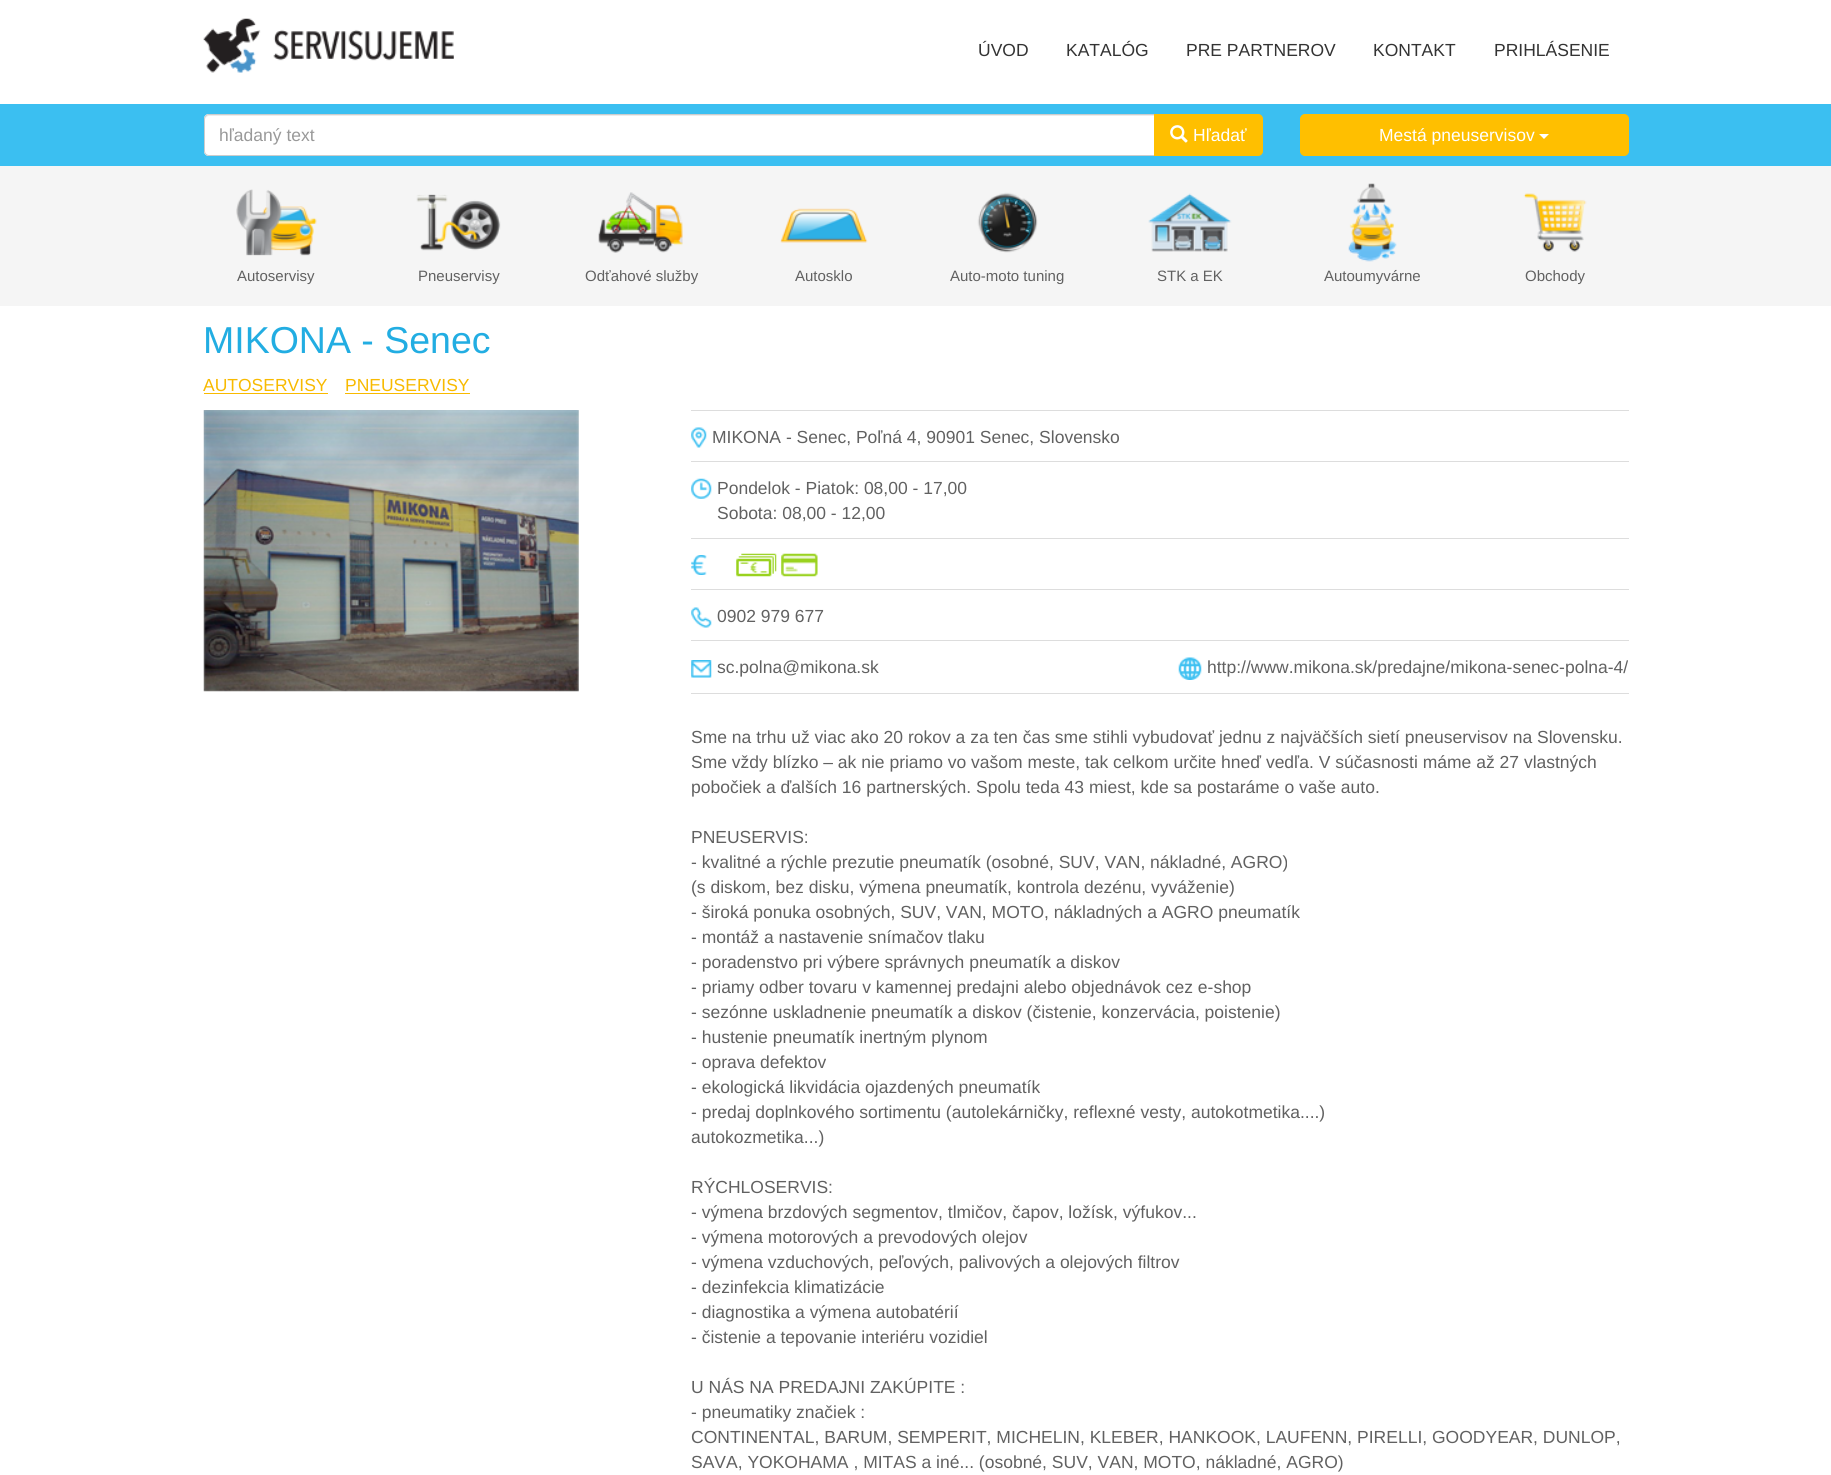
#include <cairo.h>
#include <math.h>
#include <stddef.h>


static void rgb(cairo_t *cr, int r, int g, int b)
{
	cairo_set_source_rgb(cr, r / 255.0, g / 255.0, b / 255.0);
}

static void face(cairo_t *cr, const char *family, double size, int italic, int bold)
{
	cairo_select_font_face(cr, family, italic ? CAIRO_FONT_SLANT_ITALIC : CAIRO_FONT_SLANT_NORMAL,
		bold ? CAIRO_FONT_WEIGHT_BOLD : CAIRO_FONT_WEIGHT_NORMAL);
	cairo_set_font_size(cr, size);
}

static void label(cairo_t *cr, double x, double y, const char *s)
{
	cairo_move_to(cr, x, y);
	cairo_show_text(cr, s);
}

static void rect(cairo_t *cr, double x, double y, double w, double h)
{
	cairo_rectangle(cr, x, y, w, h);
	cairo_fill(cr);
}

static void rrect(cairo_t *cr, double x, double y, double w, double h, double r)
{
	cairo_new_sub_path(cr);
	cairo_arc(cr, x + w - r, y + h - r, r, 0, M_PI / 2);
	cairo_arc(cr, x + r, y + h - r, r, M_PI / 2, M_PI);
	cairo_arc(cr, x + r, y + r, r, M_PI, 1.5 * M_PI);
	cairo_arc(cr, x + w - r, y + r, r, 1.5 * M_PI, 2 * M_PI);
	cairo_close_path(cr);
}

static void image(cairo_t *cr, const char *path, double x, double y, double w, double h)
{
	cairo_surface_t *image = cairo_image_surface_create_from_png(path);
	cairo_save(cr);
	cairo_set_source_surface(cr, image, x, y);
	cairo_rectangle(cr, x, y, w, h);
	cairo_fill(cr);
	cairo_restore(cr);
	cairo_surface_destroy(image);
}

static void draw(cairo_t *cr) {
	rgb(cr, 255, 255, 255);
	cairo_paint(cr);
	image(cr, "image0.png", 203, 18, 251, 55);
	face(cr, "Liberation Sans", 17.5, 0, 0);
	rgb(cr, 51, 51, 51);
	label(cr, 978, 56, "ÚVOD");
	label(cr, 1066, 56, "KATALÓG");
	label(cr, 1186, 56, "PRE PARTNEROV");
	label(cr, 1373, 56, "KONTAKT");
	label(cr, 1494, 56, "PRIHLÁSENIE");
	rgb(cr, 59, 191, 241);
	rect(cr, 0, 104, 1831, 62);
	rgb(cr, 255, 255, 255);
	cairo_new_path(cr);
	cairo_move_to(cr, 209, 114);
	cairo_line_to(cr, 1155, 114);
	cairo_line_to(cr, 1155, 156);
	cairo_line_to(cr, 209, 156);
	cairo_curve_to(cr, 206, 156, 204, 154, 204, 151);
	cairo_line_to(cr, 204, 119);
	cairo_curve_to(cr, 204, 116, 206, 114, 209, 114);
	cairo_close_path(cr);
	cairo_fill(cr);
	rgb(cr, 236, 236, 236);
	cairo_new_path(cr);
	cairo_move_to(cr, 209, 116);
	cairo_line_to(cr, 1154, 116);
	cairo_line_to(cr, 1154, 115);
	cairo_line_to(cr, 209, 115);
	cairo_curve_to(cr, 206, 115, 205, 117, 205, 120);
	cairo_curve_to(cr, 205, 118, 207, 116, 209, 116);
	cairo_close_path(cr);
	cairo_fill(cr);
	cairo_new_path(cr);
	cairo_move_to(cr, 209, 114.5);
	cairo_line_to(cr, 1154.5, 114.5);
	cairo_line_to(cr, 1154.5, 155.5);
	cairo_line_to(cr, 209, 155.5);
	cairo_curve_to(cr, 206.5, 155.5, 204.5, 153.5, 204.5, 151);
	cairo_line_to(cr, 204.5, 119);
	cairo_curve_to(cr, 204.5, 116.5, 206.5, 114.5, 209, 114.5);
	cairo_close_path(cr);
	rgb(cr, 204, 204, 204);
	cairo_set_line_width(cr, 1);
	cairo_stroke(cr);
	rgb(cr, 153, 153, 153);
	label(cr, 219, 141, "hľadaný text");
	rgb(cr, 255, 191, 0);
	cairo_new_path(cr);
	cairo_move_to(cr, 1154.5, 114.5);
	cairo_line_to(cr, 1258, 114.5);
	cairo_curve_to(cr, 1260.5, 114.5, 1262.5, 116.5, 1262.5, 119);
	cairo_line_to(cr, 1262.5, 151);
	cairo_curve_to(cr, 1262.5, 153.5, 1260.5, 155.5, 1258, 155.5);
	cairo_line_to(cr, 1154.5, 155.5);
	cairo_close_path(cr);
	cairo_fill_preserve(cr);
	cairo_stroke(cr);
	image(cr, "image1.png", 1170, 125, 18, 18);
	rgb(cr, 255, 255, 255);
	label(cr, 1193, 141, "Hľadať");
	rgb(cr, 255, 191, 0);
	rrect(cr, 1300.5, 114.5, 328, 41, 4.5);
	cairo_fill_preserve(cr);
	cairo_stroke(cr);
	rgb(cr, 255, 255, 255);
	label(cr, 1379, 141, "Mestá pneuservisov");
	cairo_new_path(cr);
	cairo_move_to(cr, 1539, 134);
	cairo_line_to(cr, 1549, 134);
	cairo_line_to(cr, 1544, 139);
	cairo_close_path(cr);
	cairo_fill(cr);
	rgb(cr, 245, 245, 245);
	rect(cr, 0, 166, 1831, 140);
	image(cr, "image2.png", 236, 189, 81, 67);
	face(cr, "Liberation Sans", 15, 0, 0);
	rgb(cr, 97, 97, 97);
	label(cr, 237, 281, "Autoservisy");
	image(cr, "image3.png", 416, 194, 85, 57);
	label(cr, 418, 281, "Pneuservisy");
	image(cr, "image4.png", 598, 192, 85, 61);
	label(cr, 585, 281, "Odťahové služby");
	image(cr, "image5.png", 780, 208, 88, 35);
	label(cr, 795, 281, "Autosklo");
	image(cr, "image6.png", 977, 192, 61, 61);
	label(cr, 950, 281, "Auto-moto tuning");
	image(cr, "image7.png", 1148, 193, 84, 59);
	label(cr, 1157, 281, "STK a EK");
	image(cr, "image8.png", 1348, 183, 49, 79);
	label(cr, 1324, 281, "Autoumyvárne");
	image(cr, "image9.png", 1523, 193, 64, 59);
	label(cr, 1525, 281, "Obchody");
	face(cr, "Liberation Sans", 37.5, 0, 0);
	rgb(cr, 34, 173, 226);
	label(cr, 203, 353, "MIKONA - Senec");
	face(cr, "Liberation Sans", 17.5, 0, 0);
	rgb(cr, 248, 186, 0);
	label(cr, 203, 391, "AUTOSERVISY");
	rect(cr, 204, 393, 124, 1);
	label(cr, 345, 391, "PNEUSERVISY");
	rect(cr, 345, 393, 125, 1);
	image(cr, "image10.png", 203, 410, 376, 282);
	rgb(cr, 221, 221, 221);
	rect(cr, 691, 410, 938, 1);
	image(cr, "image11.png", 691, 427, 16, 21);
	rgb(cr, 97, 97, 97);
	label(cr, 712, 443, "MIKONA - Senec, Poľná 4, 90901 Senec, Slovensko");
	rgb(cr, 221, 221, 221);
	rect(cr, 691, 461, 938, 1);
	image(cr, "image12.png", 691, 478, 21, 21);
	rgb(cr, 97, 97, 97);
	label(cr, 717, 494, "Pondelok - Piatok: 08,00 - 17,00");
	label(cr, 717, 519, "Sobota: 08,00 - 12,00");
	rgb(cr, 221, 221, 221);
	rect(cr, 691, 538, 938, 1);
	image(cr, "image13.png", 691, 555, 16, 20);
	image(cr, "image14.png", 736, 553, 41, 24);
	image(cr, "image15.png", 781, 553, 37, 24);
	rect(cr, 691, 589, 938, 1);
	image(cr, "image16.png", 691, 607, 21, 21);
	rgb(cr, 97, 97, 97);
	label(cr, 717, 622, "0902 979 677");
	rgb(cr, 221, 221, 221);
	rect(cr, 691, 640, 938, 1);
	image(cr, "image17.png", 691, 660, 21, 18);
	rgb(cr, 97, 97, 97);
	label(cr, 717, 673, "sc.polna@mikona.sk");
	image(cr, "image18.png", 1178, 657, 24, 23);
	label(cr, 1207, 673, "http://www.mikona.sk/predajne/mikona-senec-polna-4/");
	rgb(cr, 221, 221, 221);
	rect(cr, 691, 693, 938, 1);
	rgb(cr, 97, 97, 97);
	label(cr, 691, 743, "Sme na trhu už viac ako 20 rokov a za ten čas sme stihli vybudovať jednu z najväčších sietí pneuservisov na Slovensku.");
	label(cr, 691, 768, "Sme vždy blízko – ak nie priamo vo vašom meste, tak celkom určite hneď vedľa. V súčasnosti máme až 27 vlastných");
	label(cr, 691, 793, "pobočiek a ďalších 16 partnerských. Spolu teda 43 miest, kde sa postaráme o vaše auto.");
	label(cr, 691, 843, "PNEUSERVIS:");
	label(cr, 691, 868, "- kvalitné a rýchle prezutie pneumatík (osobné, SUV, VAN, nákladné, AGRO)");
	label(cr, 691, 893, "(s diskom, bez disku, výmena pneumatík, kontrola dezénu, vyváženie)");
	label(cr, 691, 918, "- široká ponuka osobných, SUV, VAN, MOTO, nákladných a AGRO pneumatík");
	label(cr, 691, 943, "- montáž a nastavenie snímačov tlaku");
	label(cr, 691, 968, "- poradenstvo pri výbere správnych pneumatík a diskov");
	label(cr, 691, 993, "- priamy odber tovaru v kamennej predajni alebo objednávok cez e-shop");
	label(cr, 691, 1018, "- sezónne uskladnenie pneumatík a diskov (čistenie, konzervácia, poistenie)");
	label(cr, 691, 1043, "- hustenie pneumatík inertným plynom");
	label(cr, 691, 1068, "- oprava defektov");
	label(cr, 691, 1093, "- ekologická likvidácia ojazdených pneumatík");
	label(cr, 691, 1118, "- predaj doplnkového sortimentu (autolekárničky, reflexné vesty, autokotmetika....)");
	label(cr, 691, 1143, "autokozmetika...)");
	label(cr, 691, 1193, "RÝCHLOSERVIS:");
	label(cr, 691, 1218, "- výmena brzdových segmentov, tlmičov, čapov, ložísk, výfukov...");
	label(cr, 691, 1243, "- výmena motorových a prevodových olejov");
	label(cr, 691, 1268, "- výmena vzduchových, peľových, palivových a olejových filtrov");
	label(cr, 691, 1293, "- dezinfekcia klimatizácie");
	label(cr, 691, 1318, "- diagnostika a výmena autobatérií");
	label(cr, 691, 1343, "- čistenie a tepovanie interiéru vozidiel");
	label(cr, 691, 1393, "U NÁS NA PREDAJNI ZAKÚPITE :");
	label(cr, 691, 1418, "- pneumatiky značiek :");
	label(cr, 691, 1443, "CONTINENTAL, BARUM, SEMPERIT, MICHELIN, KLEBER, HANKOOK, LAUFENN, PIRELLI, GOODYEAR, DUNLOP,");
	label(cr, 691, 1468, "SAVA, YOKOHAMA , MITAS a iné... (osobné, SUV, VAN, MOTO, nákladné, AGRO)");
}

int main(void) {
	cairo_surface_t *surface = cairo_image_surface_create(CAIRO_FORMAT_RGB24, 1831, 1475);
	cairo_t *cr = cairo_create(surface);
	cairo_font_options_t *options = cairo_font_options_create();
	cairo_font_options_set_hint_metrics(options, CAIRO_HINT_METRICS_OFF);
	cairo_font_options_set_hint_style(options, CAIRO_HINT_STYLE_NONE);
	cairo_set_font_options(cr, options);
	cairo_set_miter_limit(cr, 4);
	draw(cr);
	cairo_surface_write_to_png(surface, "render.png");
	cairo_font_options_destroy(options);
	cairo_destroy(cr);
	cairo_surface_destroy(surface);
	return 0;
}
